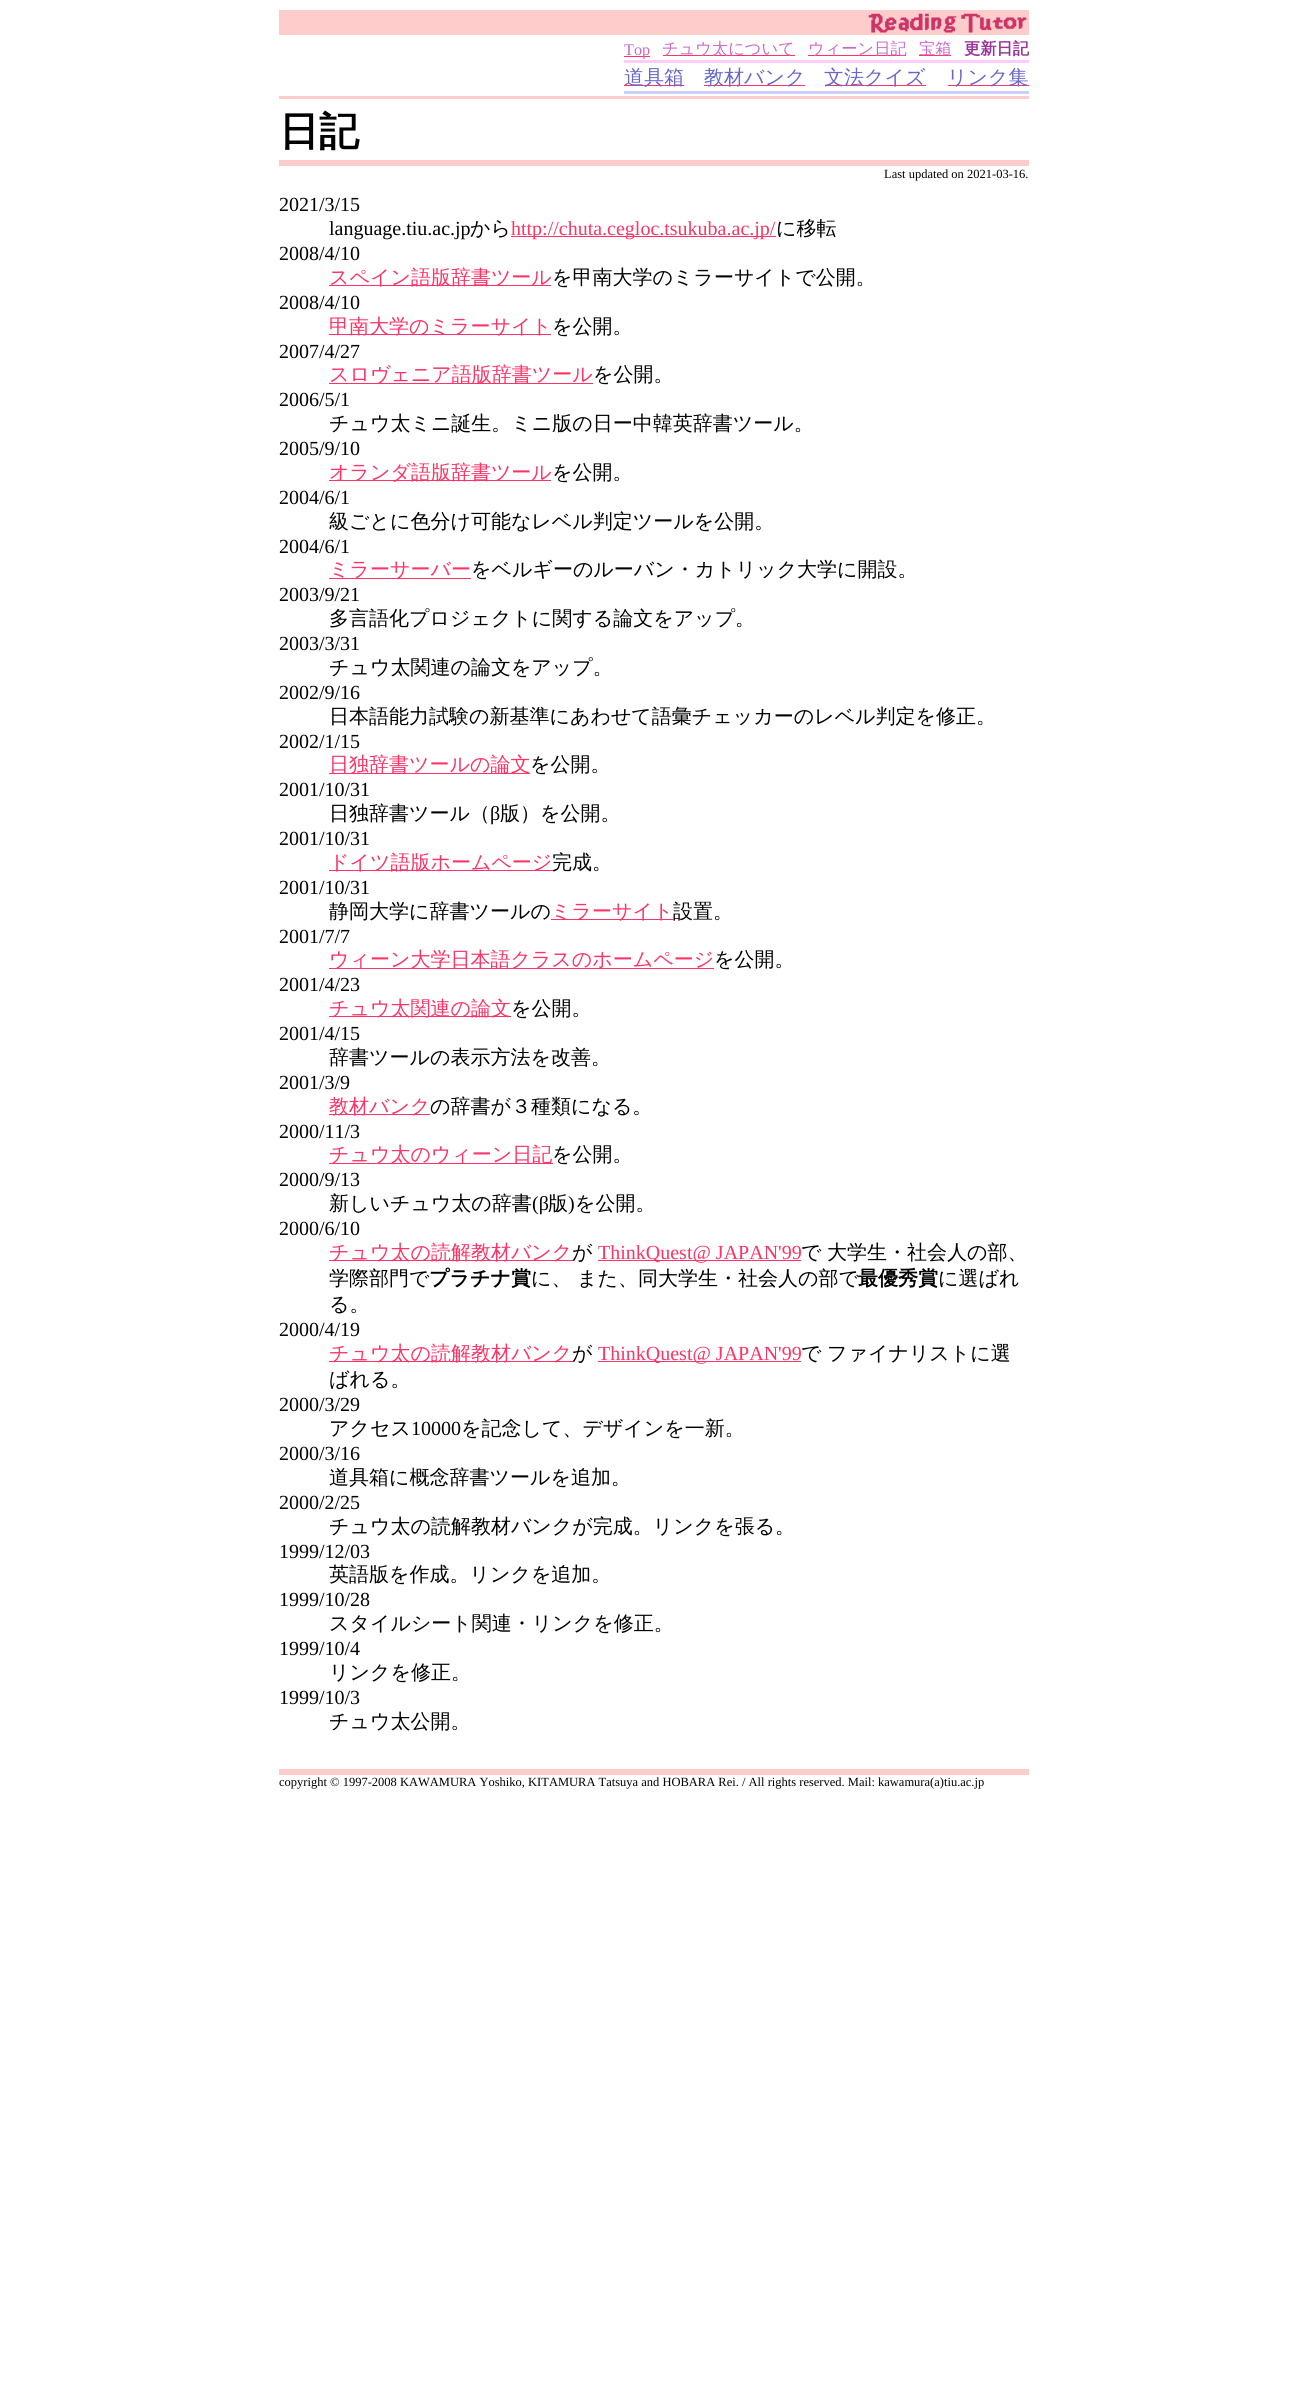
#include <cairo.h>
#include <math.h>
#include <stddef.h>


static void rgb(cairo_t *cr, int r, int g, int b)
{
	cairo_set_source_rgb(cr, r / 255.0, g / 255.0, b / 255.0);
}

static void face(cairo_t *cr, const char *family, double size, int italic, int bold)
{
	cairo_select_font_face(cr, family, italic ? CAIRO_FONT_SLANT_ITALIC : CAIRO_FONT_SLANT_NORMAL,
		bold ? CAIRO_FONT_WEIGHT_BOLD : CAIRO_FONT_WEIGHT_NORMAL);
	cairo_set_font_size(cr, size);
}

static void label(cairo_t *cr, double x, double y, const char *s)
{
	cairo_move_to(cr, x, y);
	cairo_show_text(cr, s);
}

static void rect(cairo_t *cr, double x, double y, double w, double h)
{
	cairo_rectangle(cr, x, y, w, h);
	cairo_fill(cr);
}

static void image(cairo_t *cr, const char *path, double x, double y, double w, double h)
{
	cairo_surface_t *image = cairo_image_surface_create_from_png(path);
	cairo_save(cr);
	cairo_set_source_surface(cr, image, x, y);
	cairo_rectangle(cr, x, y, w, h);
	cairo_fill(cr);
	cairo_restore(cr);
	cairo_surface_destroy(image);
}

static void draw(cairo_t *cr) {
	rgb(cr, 255, 255, 255);
	cairo_paint(cr);
	rgb(cr, 255, 204, 204);
	rect(cr, 279, 10, 750, 25);
	image(cr, "image0.png", 868, 13, 159, 20);
	rgb(cr, 255, 51, 102);
	rect(cr, 624, 56, 26, 1);
	face(cr, "Liberation Serif", 16.25, 0, 0);
	rgb(cr, 204, 102, 204);
	label(cr, 624, 55, "Top");
	rgb(cr, 255, 51, 102);
	rect(cr, 663, 55, 132, 1);
	face(cr, "WenQuanYi Zen Hei Medium", 16.25, 0, 0);
	rgb(cr, 204, 102, 204);
	label(cr, 662, 54, "チュウ太について");
	rgb(cr, 255, 51, 102);
	rect(cr, 808, 55, 98, 1);
	rgb(cr, 204, 102, 204);
	label(cr, 808, 54, "ウィーン日記");
	rgb(cr, 255, 51, 102);
	rect(cr, 919, 55, 32, 1);
	rgb(cr, 204, 102, 204);
	label(cr, 919, 54, "宝箱");
	face(cr, "WenQuanYi Zen Hei", 16.25, 0, 1);
	rgb(cr, 153, 51, 153);
	label(cr, 964, 54, "更新日記");
	rgb(cr, 255, 204, 255);
	rect(cr, 624, 60, 405, 3);
	rgb(cr, 255, 51, 102);
	rect(cr, 624, 85, 60, 1);
	face(cr, "WenQuanYi Zen Hei Medium", 20, 0, 0);
	rgb(cr, 102, 102, 204);
	label(cr, 624, 84, "道具箱");
	rgb(cr, 255, 51, 102);
	rect(cr, 704, 85, 101, 1);
	rgb(cr, 102, 102, 204);
	label(cr, 704, 84, "教材バンク");
	rgb(cr, 255, 51, 102);
	rect(cr, 825, 85, 101, 1);
	rgb(cr, 102, 102, 204);
	label(cr, 824, 84, "文法クイズ");
	rgb(cr, 255, 51, 102);
	rect(cr, 948, 85, 81, 1);
	rgb(cr, 102, 102, 204);
	label(cr, 947, 84, "リンク集");
	rgb(cr, 204, 204, 255);
	rect(cr, 624, 91, 405, 3);
	rgb(cr, 255, 204, 204);
	rect(cr, 279, 96, 750, 3);
	face(cr, "WenQuanYi Zen Hei", 40, 0, 1);
	rgb(cr, 0, 0, 0);
	label(cr, 279, 145, "日記");
	rgb(cr, 255, 204, 204);
	rect(cr, 279, 160, 750, 6);
	face(cr, "Liberation Serif", 12.5, 0, 0);
	rgb(cr, 0, 0, 0);
	label(cr, 884, 178, "Last updated on 2021-03-16.");
	face(cr, "Liberation Serif", 20, 0, 0);
	label(cr, 279, 211, "2021/3/15");
	label(cr, 329, 235, "language.tiu.ac.jp");
	face(cr, "WenQuanYi Zen Hei Medium", 20, 0, 0);
	label(cr, 470, 235, "から");
	rgb(cr, 255, 51, 102);
	rect(cr, 511, 236, 265, 1);
	face(cr, "Liberation Serif", 20, 0, 0);
	label(cr, 511, 235, "http://chuta.cegloc.tsukuba.ac.jp/");
	face(cr, "WenQuanYi Zen Hei Medium", 20, 0, 0);
	rgb(cr, 0, 0, 0);
	label(cr, 776, 235, "に移転");
	face(cr, "Liberation Serif", 20, 0, 0);
	label(cr, 279, 260, "2008/4/10");
	rgb(cr, 255, 51, 102);
	rect(cr, 329, 285, 222, 1);
	face(cr, "WenQuanYi Zen Hei Medium", 20, 0, 0);
	label(cr, 329, 284, "スペイン語版辞書ツール");
	rgb(cr, 0, 0, 0);
	label(cr, 552, 284, "を甲南大学のミラーサイトで公開。");
	face(cr, "Liberation Serif", 20, 0, 0);
	label(cr, 279, 309, "2008/4/10");
	rgb(cr, 255, 51, 102);
	rect(cr, 329, 334, 222, 1);
	face(cr, "WenQuanYi Zen Hei Medium", 20, 0, 0);
	label(cr, 329, 333, "甲南大学のミラーサイト");
	rgb(cr, 0, 0, 0);
	label(cr, 552, 333, "を公開。");
	face(cr, "Liberation Serif", 20, 0, 0);
	label(cr, 279, 358, "2007/4/27");
	rgb(cr, 255, 51, 102);
	rect(cr, 329, 383, 264, 1);
	face(cr, "WenQuanYi Zen Hei Medium", 20, 0, 0);
	label(cr, 329, 381, "スロヴェニア語版辞書ツール");
	rgb(cr, 0, 0, 0);
	label(cr, 593, 381, "を公開。");
	face(cr, "Liberation Serif", 20, 0, 0);
	label(cr, 279, 406, "2006/5/1");
	face(cr, "WenQuanYi Zen Hei Medium", 20, 0, 0);
	label(cr, 329, 430, "チュウ太ミニ誕生。ミニ版の日ー中韓英辞書ツール。");
	face(cr, "Liberation Serif", 20, 0, 0);
	label(cr, 279, 455, "2005/9/10");
	rgb(cr, 255, 51, 102);
	rect(cr, 329, 480, 222, 1);
	face(cr, "WenQuanYi Zen Hei Medium", 20, 0, 0);
	label(cr, 329, 479, "オランダ語版辞書ツール");
	rgb(cr, 0, 0, 0);
	label(cr, 552, 479, "を公開。");
	face(cr, "Liberation Serif", 20, 0, 0);
	label(cr, 279, 504, "2004/6/1");
	face(cr, "WenQuanYi Zen Hei Medium", 20, 0, 0);
	label(cr, 329, 528, "級ごとに色分け可能なレベル判定ツールを公開。");
	face(cr, "Liberation Serif", 20, 0, 0);
	label(cr, 279, 553, "2004/6/1");
	rgb(cr, 255, 51, 102);
	rect(cr, 329, 578, 142, 1);
	face(cr, "WenQuanYi Zen Hei Medium", 20, 0, 0);
	label(cr, 329, 576, "ミラーサーバー");
	rgb(cr, 0, 0, 0);
	label(cr, 471, 576, "をベルギーのルーバン・カトリック大学に開設。");
	face(cr, "Liberation Serif", 20, 0, 0);
	label(cr, 279, 601, "2003/9/21");
	face(cr, "WenQuanYi Zen Hei Medium", 20, 0, 0);
	label(cr, 329, 625, "多言語化プロジェクトに関する論文をアップ。");
	face(cr, "Liberation Serif", 20, 0, 0);
	label(cr, 279, 650, "2003/3/31");
	face(cr, "WenQuanYi Zen Hei Medium", 20, 0, 0);
	label(cr, 329, 674, "チュウ太関連の論文をアップ。");
	face(cr, "Liberation Serif", 20, 0, 0);
	label(cr, 279, 699, "2002/9/16");
	face(cr, "WenQuanYi Zen Hei Medium", 20, 0, 0);
	label(cr, 329, 723, "日本語能力試験の新基準にあわせて語彙チェッカーのレベル判定を修正。");
	face(cr, "Liberation Serif", 20, 0, 0);
	label(cr, 279, 748, "2002/1/15");
	rgb(cr, 255, 51, 102);
	rect(cr, 329, 773, 201, 1);
	face(cr, "WenQuanYi Zen Hei Medium", 20, 0, 0);
	label(cr, 329, 771, "日独辞書ツールの論文");
	rgb(cr, 0, 0, 0);
	label(cr, 530, 771, "を公開。");
	face(cr, "Liberation Serif", 20, 0, 0);
	label(cr, 279, 796, "2001/10/31");
	face(cr, "WenQuanYi Zen Hei Medium", 20, 0, 0);
	label(cr, 329, 820, "日独辞書ツール（");
	face(cr, "Liberation Serif", 20, 0, 0);
	label(cr, 490, 820, "β");
	face(cr, "WenQuanYi Zen Hei Medium", 20, 0, 0);
	label(cr, 500, 820, "版）を公開。");
	face(cr, "Liberation Serif", 20, 0, 0);
	label(cr, 279, 845, "2001/10/31");
	rgb(cr, 255, 51, 102);
	rect(cr, 329, 870, 224, 1);
	face(cr, "WenQuanYi Zen Hei Medium", 20, 0, 0);
	label(cr, 329, 869, "ドイツ語版ホームページ");
	rgb(cr, 0, 0, 0);
	label(cr, 552, 869, "完成。");
	face(cr, "Liberation Serif", 20, 0, 0);
	label(cr, 279, 894, "2001/10/31");
	face(cr, "WenQuanYi Zen Hei Medium", 20, 0, 0);
	label(cr, 329, 918, "静岡大学に辞書ツールの");
	rgb(cr, 255, 51, 102);
	rect(cr, 551, 919, 122, 1);
	label(cr, 551, 918, "ミラーサイト");
	rgb(cr, 0, 0, 0);
	label(cr, 673, 918, "設置。");
	face(cr, "Liberation Serif", 20, 0, 0);
	label(cr, 279, 943, "2001/7/7");
	rgb(cr, 255, 51, 102);
	rect(cr, 329, 968, 385, 1);
	face(cr, "WenQuanYi Zen Hei Medium", 20, 0, 0);
	label(cr, 329, 966, "ウィーン大学日本語クラスのホームページ");
	rgb(cr, 0, 0, 0);
	label(cr, 714, 966, "を公開。");
	face(cr, "Liberation Serif", 20, 0, 0);
	label(cr, 279, 991, "2001/4/23");
	rgb(cr, 255, 51, 102);
	rect(cr, 329, 1016, 182, 1);
	face(cr, "WenQuanYi Zen Hei Medium", 20, 0, 0);
	label(cr, 329, 1015, "チュウ太関連の論文");
	rgb(cr, 0, 0, 0);
	label(cr, 511, 1015, "を公開。");
	face(cr, "Liberation Serif", 20, 0, 0);
	label(cr, 279, 1040, "2001/4/15");
	face(cr, "WenQuanYi Zen Hei Medium", 20, 0, 0);
	label(cr, 329, 1064, "辞書ツールの表示方法を改善。");
	face(cr, "Liberation Serif", 20, 0, 0);
	label(cr, 279, 1089, "2001/3/9");
	rgb(cr, 255, 51, 102);
	rect(cr, 329, 1114, 101, 1);
	face(cr, "WenQuanYi Zen Hei Medium", 20, 0, 0);
	label(cr, 329, 1113, "教材バンク");
	rgb(cr, 0, 0, 0);
	label(cr, 430, 1113, "の辞書が３種類になる。");
	face(cr, "Liberation Serif", 20, 0, 0);
	label(cr, 279, 1138, "2000/11/3");
	rgb(cr, 255, 51, 102);
	rect(cr, 329, 1163, 224, 1);
	face(cr, "WenQuanYi Zen Hei Medium", 20, 0, 0);
	label(cr, 329, 1161, "チュウ太のウィーン日記");
	rgb(cr, 0, 0, 0);
	label(cr, 552, 1161, "を公開。");
	face(cr, "Liberation Serif", 20, 0, 0);
	label(cr, 279, 1186, "2000/9/13");
	face(cr, "WenQuanYi Zen Hei Medium", 20, 0, 0);
	label(cr, 329, 1210, "新しいチュウ太の辞書");
	face(cr, "Liberation Serif", 20, 0, 0);
	label(cr, 532, 1210, "(β");
	face(cr, "WenQuanYi Zen Hei Medium", 20, 0, 0);
	label(cr, 548, 1210, "版");
	face(cr, "Liberation Serif", 20, 0, 0);
	label(cr, 568, 1210, ")");
	face(cr, "WenQuanYi Zen Hei Medium", 20, 0, 0);
	label(cr, 575, 1210, "を公開。");
	face(cr, "Liberation Serif", 20, 0, 0);
	label(cr, 279, 1235, "2000/6/10");
	rgb(cr, 255, 51, 102);
	rect(cr, 329, 1260, 244, 1);
	face(cr, "WenQuanYi Zen Hei Medium", 20, 0, 0);
	label(cr, 329, 1259, "チュウ太の読解教材バンク");
	rgb(cr, 0, 0, 0);
	label(cr, 572, 1259, "が");
	rgb(cr, 255, 51, 102);
	rect(cr, 598, 1260, 203, 1);
	face(cr, "Liberation Serif", 20, 0, 0);
	label(cr, 598, 1259, "ThinkQuest@ JAPAN'99");
	face(cr, "WenQuanYi Zen Hei Medium", 20, 0, 0);
	rgb(cr, 0, 0, 0);
	label(cr, 801, 1259, "で");
	label(cr, 827, 1259, "大学生・社会人の部、");
	label(cr, 329, 1285, "学際部門で");
	face(cr, "WenQuanYi Zen Hei", 20, 0, 1);
	label(cr, 429, 1285, "プラチナ賞");
	face(cr, "WenQuanYi Zen Hei Medium", 20, 0, 0);
	label(cr, 531, 1285, "に、");
	label(cr, 577, 1285, "また、同大学生・社会人の部で");
	face(cr, "WenQuanYi Zen Hei", 20, 0, 1);
	label(cr, 858, 1285, "最優秀賞");
	face(cr, "WenQuanYi Zen Hei Medium", 20, 0, 0);
	label(cr, 938, 1285, "に選ばれ");
	label(cr, 329, 1311, "る。");
	face(cr, "Liberation Serif", 20, 0, 0);
	label(cr, 279, 1336, "2000/4/19");
	rgb(cr, 255, 51, 102);
	rect(cr, 329, 1361, 244, 1);
	face(cr, "WenQuanYi Zen Hei Medium", 20, 0, 0);
	label(cr, 329, 1360, "チュウ太の読解教材バンク");
	rgb(cr, 0, 0, 0);
	label(cr, 572, 1360, "が");
	rgb(cr, 255, 51, 102);
	rect(cr, 598, 1361, 203, 1);
	face(cr, "Liberation Serif", 20, 0, 0);
	label(cr, 598, 1360, "ThinkQuest@ JAPAN'99");
	face(cr, "WenQuanYi Zen Hei Medium", 20, 0, 0);
	rgb(cr, 0, 0, 0);
	label(cr, 801, 1360, "で");
	label(cr, 827, 1360, "ファイナリストに選");
	label(cr, 329, 1386, "ばれる。");
	face(cr, "Liberation Serif", 20, 0, 0);
	label(cr, 279, 1411, "2000/3/29");
	face(cr, "WenQuanYi Zen Hei Medium", 20, 0, 0);
	label(cr, 329, 1435, "アクセス");
	face(cr, "Liberation Serif", 20, 0, 0);
	label(cr, 411, 1435, "10000");
	face(cr, "WenQuanYi Zen Hei Medium", 20, 0, 0);
	label(cr, 461, 1435, "を記念して、デザインを一新。");
	face(cr, "Liberation Serif", 20, 0, 0);
	label(cr, 279, 1460, "2000/3/16");
	face(cr, "WenQuanYi Zen Hei Medium", 20, 0, 0);
	label(cr, 329, 1484, "道具箱に概念辞書ツールを追加。");
	face(cr, "Liberation Serif", 20, 0, 0);
	label(cr, 279, 1509, "2000/2/25");
	face(cr, "WenQuanYi Zen Hei Medium", 20, 0, 0);
	label(cr, 329, 1533, "チュウ太の読解教材バンクが完成。リンクを張る。");
	face(cr, "Liberation Serif", 20, 0, 0);
	label(cr, 279, 1558, "1999/12/03");
	face(cr, "WenQuanYi Zen Hei Medium", 20, 0, 0);
	label(cr, 329, 1581, "英語版を作成。リンクを追加。");
	face(cr, "Liberation Serif", 20, 0, 0);
	label(cr, 279, 1606, "1999/10/28");
	face(cr, "WenQuanYi Zen Hei Medium", 20, 0, 0);
	label(cr, 329, 1630, "スタイルシート関連・リンクを修正。");
	face(cr, "Liberation Serif", 20, 0, 0);
	label(cr, 279, 1655, "1999/10/4");
	face(cr, "WenQuanYi Zen Hei Medium", 20, 0, 0);
	label(cr, 329, 1679, "リンクを修正。");
	face(cr, "Liberation Serif", 20, 0, 0);
	label(cr, 279, 1704, "1999/10/3");
	face(cr, "WenQuanYi Zen Hei Medium", 20, 0, 0);
	label(cr, 329, 1728, "チュウ太公開。");
	rgb(cr, 255, 204, 204);
	rect(cr, 279, 1769, 750, 6);
	face(cr, "Liberation Serif", 12.5, 0, 0);
	rgb(cr, 0, 0, 0);
	label(cr, 279, 1786, "copyright © 1997-2008 KAWAMURA Yoshiko, KITAMURA Tatsuya and HOBARA Rei. / All rights reserved. Mail: kawamura(a)tiu.ac.jp");
}

int main(void) {
	cairo_surface_t *surface = cairo_image_surface_create(CAIRO_FORMAT_RGB24, 1307, 2390);
	cairo_t *cr = cairo_create(surface);
	cairo_font_options_t *options = cairo_font_options_create();
	cairo_font_options_set_hint_metrics(options, CAIRO_HINT_METRICS_OFF);
	cairo_font_options_set_hint_style(options, CAIRO_HINT_STYLE_NONE);
	cairo_set_font_options(cr, options);
	cairo_set_miter_limit(cr, 4);
	draw(cr);
	cairo_surface_write_to_png(surface, "render.png");
	cairo_font_options_destroy(options);
	cairo_destroy(cr);
	cairo_surface_destroy(surface);
	return 0;
}
